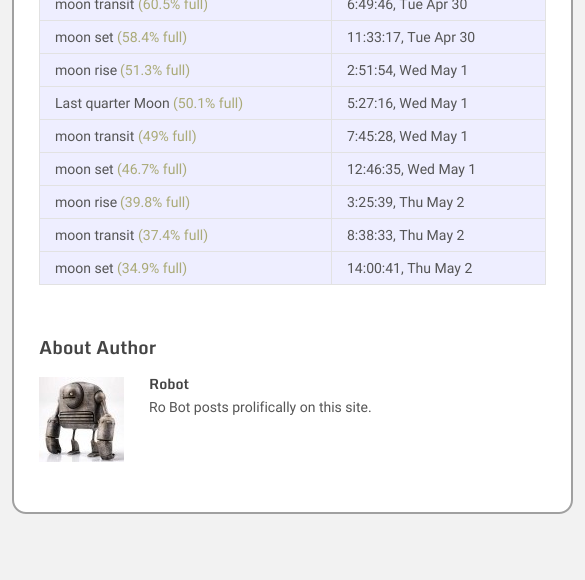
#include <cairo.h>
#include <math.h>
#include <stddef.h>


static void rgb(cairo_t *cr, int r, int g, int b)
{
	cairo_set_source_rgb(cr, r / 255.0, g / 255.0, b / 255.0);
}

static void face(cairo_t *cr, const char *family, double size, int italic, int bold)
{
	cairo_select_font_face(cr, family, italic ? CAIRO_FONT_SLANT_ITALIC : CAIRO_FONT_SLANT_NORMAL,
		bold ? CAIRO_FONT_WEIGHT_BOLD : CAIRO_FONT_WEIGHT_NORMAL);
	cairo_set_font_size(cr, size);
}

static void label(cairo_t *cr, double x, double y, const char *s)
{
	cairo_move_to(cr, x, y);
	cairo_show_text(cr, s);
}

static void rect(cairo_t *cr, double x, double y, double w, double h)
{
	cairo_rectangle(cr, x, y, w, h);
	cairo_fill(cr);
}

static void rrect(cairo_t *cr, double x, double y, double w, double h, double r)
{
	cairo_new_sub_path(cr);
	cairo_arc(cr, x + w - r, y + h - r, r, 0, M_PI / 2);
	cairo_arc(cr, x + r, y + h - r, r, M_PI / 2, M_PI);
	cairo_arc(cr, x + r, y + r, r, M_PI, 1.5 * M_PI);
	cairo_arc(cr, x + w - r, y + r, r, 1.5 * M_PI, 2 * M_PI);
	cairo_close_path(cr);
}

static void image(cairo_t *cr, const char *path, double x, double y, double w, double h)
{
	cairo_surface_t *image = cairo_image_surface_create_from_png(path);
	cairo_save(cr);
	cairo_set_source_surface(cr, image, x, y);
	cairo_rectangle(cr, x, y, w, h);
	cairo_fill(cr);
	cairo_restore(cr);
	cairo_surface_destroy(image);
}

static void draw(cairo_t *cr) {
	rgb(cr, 242, 242, 242);
	cairo_paint(cr);
	rgb(cr, 255, 255, 255);
	rrect(cr, 13, -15, 559, 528, 13);
	cairo_fill_preserve(cr);
	rgb(cr, 160, 160, 160);
	cairo_stroke(cr);
	rgb(cr, 238, 238, 255);
	rect(cr, 40, 0, 505, 20);
	face(cr, "Roboto", 14, 0, 0);
	rgb(cr, 85, 85, 85);
	label(cr, 55, 9, "moon transit");
	rgb(cr, 170, 170, 119);
	label(cr, 138, 9, "(60.5% full)");
	rgb(cr, 226, 226, 226);
	rect(cr, 331, 20, 215, 1);
	rgb(cr, 238, 238, 255);
	rect(cr, 40, 21, 505, 32);
	rgb(cr, 226, 226, 226);
	rect(cr, 331, 53, 215, 1);
	rgb(cr, 238, 238, 255);
	rect(cr, 40, 54, 505, 32);
	rgb(cr, 226, 226, 226);
	rect(cr, 331, 86, 215, 1);
	rgb(cr, 238, 238, 255);
	rect(cr, 40, 87, 505, 32);
	rgb(cr, 226, 226, 226);
	rect(cr, 331, 119, 215, 1);
	rgb(cr, 238, 238, 255);
	rect(cr, 40, 120, 505, 32);
	rgb(cr, 226, 226, 226);
	rect(cr, 331, 152, 215, 1);
	rgb(cr, 238, 238, 255);
	rect(cr, 40, 153, 505, 32);
	rgb(cr, 226, 226, 226);
	rect(cr, 331, 185, 215, 1);
	rgb(cr, 238, 238, 255);
	rect(cr, 40, 186, 505, 32);
	rgb(cr, 226, 226, 226);
	rect(cr, 331, 218, 215, 1);
	rgb(cr, 238, 238, 255);
	rect(cr, 40, 219, 505, 32);
	rgb(cr, 226, 226, 226);
	rect(cr, 331, 251, 215, 1);
	rgb(cr, 238, 238, 255);
	rect(cr, 40, 252, 505, 32);
	rgb(cr, 226, 226, 226);
	rect(cr, 545, 251, 1, 34);
	rect(cr, 331, 284, 215, 1);
	rect(cr, 331, 251, 1, 34);
	rect(cr, 39, 251, 293, 1);
	rect(cr, 331, 218, 1, 34);
	rect(cr, 39, 218, 293, 1);
	rect(cr, 331, 185, 1, 34);
	rect(cr, 39, 185, 293, 1);
	rect(cr, 331, 152, 1, 34);
	rect(cr, 39, 152, 293, 1);
	rect(cr, 331, 119, 1, 34);
	rect(cr, 39, 119, 293, 1);
	rect(cr, 331, 86, 1, 34);
	rect(cr, 39, 86, 293, 1);
	rect(cr, 331, 53, 1, 34);
	rect(cr, 39, 53, 293, 1);
	rect(cr, 331, 20, 1, 34);
	rect(cr, 39, 20, 293, 1);
	rect(cr, 331, 0, 1, 21);
	rgb(cr, 85, 85, 85);
	label(cr, 347, 9, "6:49:46, Tue Apr 30");
	rgb(cr, 226, 226, 226);
	rect(cr, 39, 284, 293, 1);
	rect(cr, 39, 251, 1, 34);
	rect(cr, 39, 218, 1, 34);
	rect(cr, 39, 185, 1, 34);
	rect(cr, 39, 152, 1, 34);
	rect(cr, 39, 119, 1, 34);
	rect(cr, 39, 86, 1, 34);
	rect(cr, 39, 53, 1, 34);
	rect(cr, 39, 0, 1, 54);
	rgb(cr, 85, 85, 85);
	label(cr, 55, 42, "moon set");
	rgb(cr, 170, 170, 119);
	label(cr, 117, 42, "(58.4% full)");
	rgb(cr, 226, 226, 226);
	rect(cr, 545, 218, 1, 34);
	rect(cr, 545, 185, 1, 34);
	rect(cr, 545, 152, 1, 34);
	rect(cr, 545, 119, 1, 34);
	rect(cr, 545, 86, 1, 34);
	rect(cr, 545, 53, 1, 34);
	rect(cr, 545, 0, 1, 54);
	rgb(cr, 85, 85, 85);
	label(cr, 347, 42, "11:33:17, Tue Apr 30");
	label(cr, 55, 75, "moon rise");
	rgb(cr, 170, 170, 119);
	label(cr, 120, 75, "(51.3% full)");
	rgb(cr, 85, 85, 85);
	label(cr, 347, 75, "2:51:54, Wed May 1");
	label(cr, 55, 108, "Last quarter Moon");
	rgb(cr, 170, 170, 119);
	label(cr, 173, 108, "(50.1% full)");
	rgb(cr, 85, 85, 85);
	label(cr, 347, 108, "5:27:16, Wed May 1");
	label(cr, 55, 141, "moon transit");
	rgb(cr, 170, 170, 119);
	label(cr, 138, 141, "(49% full)");
	rgb(cr, 85, 85, 85);
	label(cr, 347, 141, "7:45:28, Wed May 1");
	label(cr, 55, 174, "moon set");
	rgb(cr, 170, 170, 119);
	label(cr, 117, 174, "(46.7% full)");
	rgb(cr, 85, 85, 85);
	label(cr, 347, 174, "12:46:35, Wed May 1");
	label(cr, 55, 207, "moon rise");
	rgb(cr, 170, 170, 119);
	label(cr, 120, 207, "(39.8% full)");
	rgb(cr, 85, 85, 85);
	label(cr, 347, 207, "3:25:39, Thu May 2");
	label(cr, 55, 240, "moon transit");
	rgb(cr, 170, 170, 119);
	label(cr, 138, 240, "(37.4% full)");
	rgb(cr, 85, 85, 85);
	label(cr, 347, 240, "8:38:33, Thu May 2");
	label(cr, 55, 273, "moon set");
	rgb(cr, 170, 170, 119);
	label(cr, 117, 273, "(34.9% full)");
	rgb(cr, 85, 85, 85);
	label(cr, 347, 273, "14:00:41, Thu May 2");
	face(cr, "Monda", 18, 0, 1);
	rgb(cr, 68, 68, 68);
	label(cr, 39, 354, "About Author");
	image(cr, "image0.png", 39, 377, 85, 85);
	face(cr, "Monda", 14, 0, 1);
	label(cr, 149, 389, "Robot");
	face(cr, "Roboto", 14, 0, 0);
	rgb(cr, 85, 85, 85);
	label(cr, 149, 412, "Ro Bot posts prolifically on this site.");
}

int main(void) {
	cairo_surface_t *surface = cairo_image_surface_create(CAIRO_FORMAT_RGB24, 585, 580);
	cairo_t *cr = cairo_create(surface);
	cairo_font_options_t *options = cairo_font_options_create();
	cairo_font_options_set_hint_metrics(options, CAIRO_HINT_METRICS_OFF);
	cairo_font_options_set_hint_style(options, CAIRO_HINT_STYLE_NONE);
	cairo_set_font_options(cr, options);
	cairo_set_miter_limit(cr, 4);
	draw(cr);
	cairo_surface_write_to_png(surface, "render.png");
	cairo_font_options_destroy(options);
	cairo_destroy(cr);
	cairo_surface_destroy(surface);
	return 0;
}
